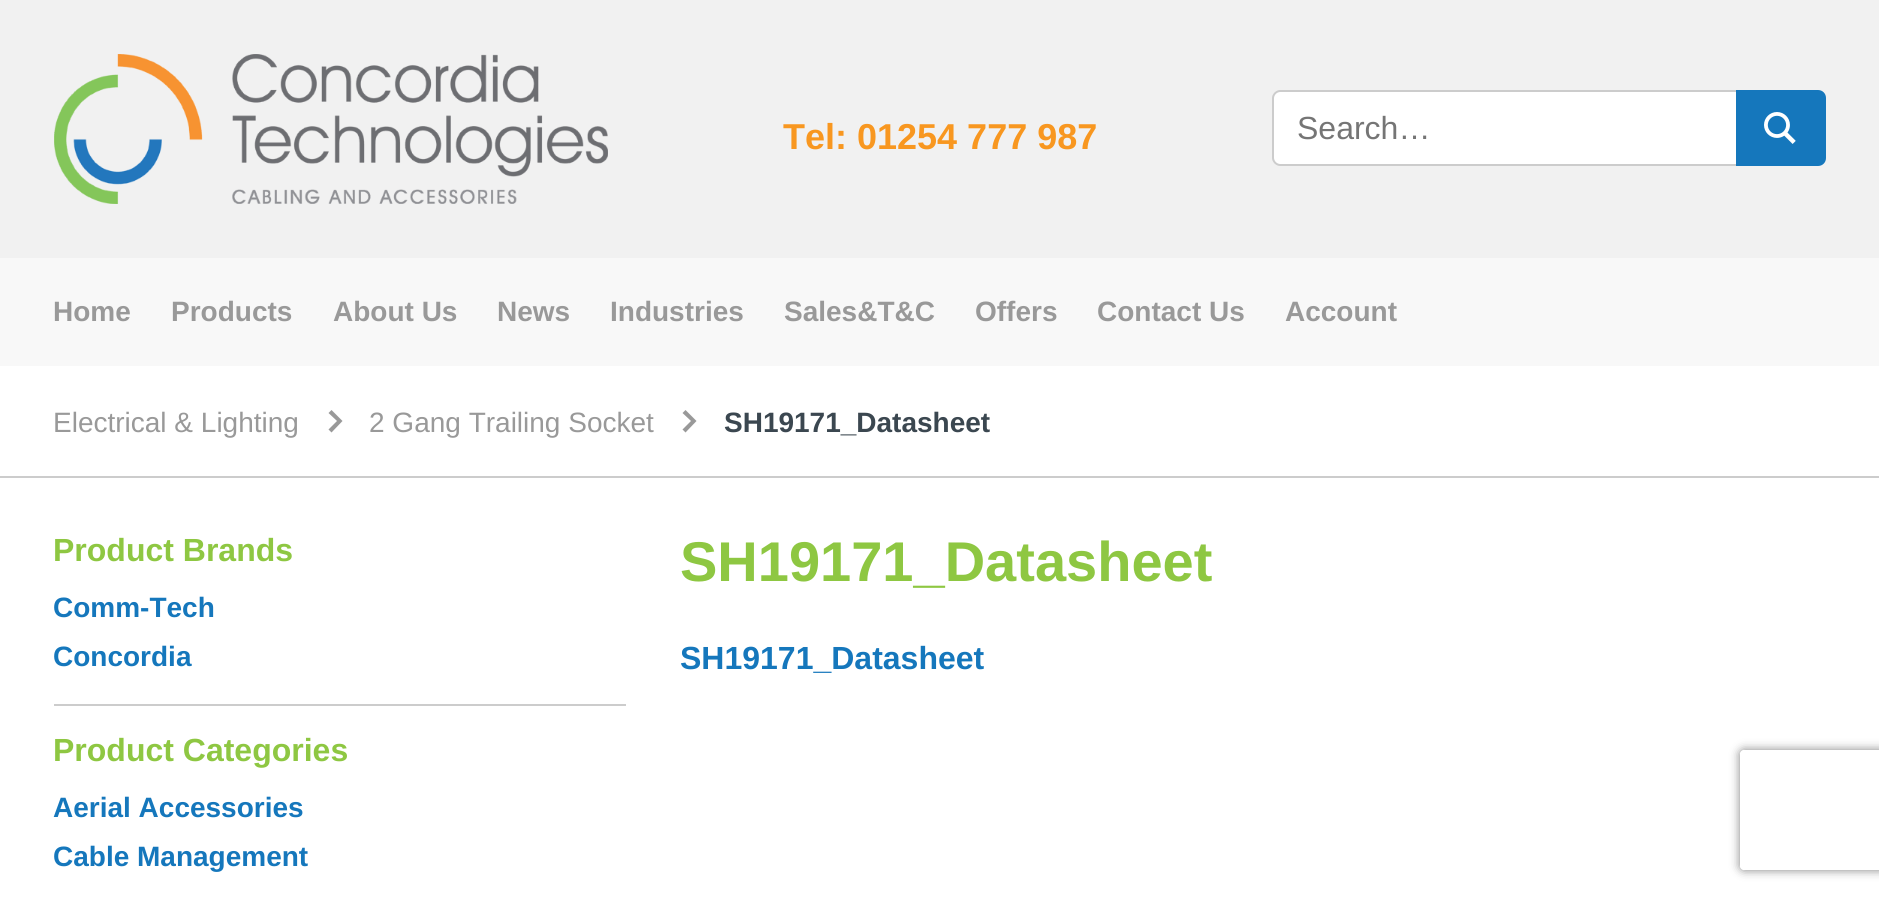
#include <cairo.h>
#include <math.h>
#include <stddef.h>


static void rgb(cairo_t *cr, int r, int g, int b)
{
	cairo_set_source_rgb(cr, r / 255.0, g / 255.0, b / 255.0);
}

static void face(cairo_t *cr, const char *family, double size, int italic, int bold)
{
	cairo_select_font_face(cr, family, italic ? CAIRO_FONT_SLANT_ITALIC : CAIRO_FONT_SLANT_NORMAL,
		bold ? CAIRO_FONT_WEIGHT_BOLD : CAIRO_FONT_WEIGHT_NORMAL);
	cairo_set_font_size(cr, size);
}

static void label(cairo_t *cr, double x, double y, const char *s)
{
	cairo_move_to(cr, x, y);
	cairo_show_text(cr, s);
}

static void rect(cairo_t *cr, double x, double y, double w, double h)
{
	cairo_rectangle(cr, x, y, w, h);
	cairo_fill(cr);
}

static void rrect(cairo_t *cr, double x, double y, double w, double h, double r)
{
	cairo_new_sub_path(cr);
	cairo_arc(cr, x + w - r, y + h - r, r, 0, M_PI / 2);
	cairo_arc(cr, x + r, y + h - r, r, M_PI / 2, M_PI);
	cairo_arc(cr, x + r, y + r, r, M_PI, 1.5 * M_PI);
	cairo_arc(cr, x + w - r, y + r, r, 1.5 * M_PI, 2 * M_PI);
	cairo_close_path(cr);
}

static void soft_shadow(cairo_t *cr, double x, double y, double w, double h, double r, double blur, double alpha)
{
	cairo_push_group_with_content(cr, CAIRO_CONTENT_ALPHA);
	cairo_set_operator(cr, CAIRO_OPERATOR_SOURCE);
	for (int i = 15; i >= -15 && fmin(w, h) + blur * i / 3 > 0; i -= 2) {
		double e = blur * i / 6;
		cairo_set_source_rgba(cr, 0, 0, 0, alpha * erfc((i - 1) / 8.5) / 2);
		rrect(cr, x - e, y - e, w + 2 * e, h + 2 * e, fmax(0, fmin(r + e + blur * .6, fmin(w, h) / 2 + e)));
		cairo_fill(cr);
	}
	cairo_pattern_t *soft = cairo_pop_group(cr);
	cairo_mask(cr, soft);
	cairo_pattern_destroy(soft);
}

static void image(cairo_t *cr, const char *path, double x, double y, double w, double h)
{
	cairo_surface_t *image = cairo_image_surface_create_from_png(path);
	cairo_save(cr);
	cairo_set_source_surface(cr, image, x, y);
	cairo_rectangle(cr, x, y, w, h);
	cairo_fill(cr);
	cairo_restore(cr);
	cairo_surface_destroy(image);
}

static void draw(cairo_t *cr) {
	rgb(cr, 241, 241, 241);
	cairo_paint(cr);
	image(cr, "image0.png", 54, 54, 554, 150);
	face(cr, "Liberation Sans", 36, 0, 1);
	rgb(cr, 248, 151, 32);
	label(cr, 783, 149, "Tel: 01254 777 987");
	rgb(cr, 255, 255, 255);
	cairo_new_path(cr);
	cairo_move_to(cr, 1280, 92);
	cairo_line_to(cr, 1736, 92);
	cairo_line_to(cr, 1736, 164);
	cairo_line_to(cr, 1280, 164);
	cairo_curve_to(cr, 1276.5, 164, 1274, 161.5, 1274, 158);
	cairo_line_to(cr, 1274, 98);
	cairo_curve_to(cr, 1274, 94.5, 1276.5, 92, 1280, 92);
	cairo_close_path(cr);
	cairo_fill(cr);
	rgb(cr, 204, 204, 204);
	cairo_set_fill_rule(cr, CAIRO_FILL_RULE_EVEN_ODD);
	cairo_new_path(cr);
	cairo_move_to(cr, 1280, 90);
	cairo_line_to(cr, 1736, 90);
	cairo_line_to(cr, 1736, 166);
	cairo_line_to(cr, 1280, 166);
	cairo_curve_to(cr, 1276, 166, 1272, 162, 1272, 158);
	cairo_line_to(cr, 1272, 98);
	cairo_curve_to(cr, 1272, 94, 1276, 90, 1280, 90);
	cairo_close_path(cr);
	cairo_move_to(cr, 1280, 92);
	cairo_line_to(cr, 1736, 92);
	cairo_line_to(cr, 1736, 164);
	cairo_line_to(cr, 1280, 164);
	cairo_curve_to(cr, 1277, 164, 1274, 161, 1274, 158);
	cairo_line_to(cr, 1274, 98);
	cairo_curve_to(cr, 1274, 95, 1277, 92, 1280, 92);
	cairo_close_path(cr);
	cairo_fill(cr);
	face(cr, "Liberation Sans", 32, 0, 0);
	rgb(cr, 117, 117, 117);
	label(cr, 1297, 139, "Search…");
	rgb(cr, 21, 119, 188);
	cairo_new_path(cr);
	cairo_move_to(cr, 1736, 90);
	cairo_line_to(cr, 1818, 90);
	cairo_curve_to(cr, 1822.5, 90, 1826, 93.5, 1826, 98);
	cairo_line_to(cr, 1826, 158);
	cairo_curve_to(cr, 1826, 162.5, 1822.5, 166, 1818, 166);
	cairo_line_to(cr, 1736, 166);
	cairo_close_path(cr);
	cairo_fill(cr);
	image(cr, "image1.png", 1764, 112, 32, 32);
	rgb(cr, 248, 248, 248);
	rect(cr, 0, 258, 1879, 108);
	face(cr, "Liberation Sans", 28, 0, 1);
	rgb(cr, 153, 153, 153);
	label(cr, 53, 321, "Home");
	label(cr, 171, 321, "Products");
	label(cr, 333, 321, "About Us");
	label(cr, 497, 321, "News");
	label(cr, 610, 321, "Industries");
	label(cr, 784, 321, "Sales&T&C");
	label(cr, 975, 321, "Offers");
	label(cr, 1097, 321, "Contact Us");
	label(cr, 1285, 321, "Account");
	rgb(cr, 255, 255, 255);
	rect(cr, 0, 366, 1879, 532);
	face(cr, "Liberation Sans", 28, 0, 0);
	rgb(cr, 153, 153, 153);
	label(cr, 53, 432, "Electrical & Lighting");
	cairo_set_fill_rule(cr, CAIRO_FILL_RULE_WINDING);
	cairo_new_path(cr);
	cairo_move_to(cr, 328.5, 413);
	cairo_line_to(cr, 331.5, 410);
	cairo_line_to(cr, 342.5, 421);
	cairo_line_to(cr, 331.5, 432.5);
	cairo_line_to(cr, 328.5, 429.5);
	cairo_line_to(cr, 337, 421);
	cairo_close_path(cr);
	cairo_fill(cr);
	label(cr, 369, 432, "2 Gang Trailing Socket");
	cairo_new_path(cr);
	cairo_move_to(cr, 682.5, 413);
	cairo_line_to(cr, 685.5, 410);
	cairo_line_to(cr, 696.5, 421);
	cairo_line_to(cr, 685.5, 432.5);
	cairo_line_to(cr, 682.5, 429.5);
	cairo_line_to(cr, 691, 421);
	cairo_close_path(cr);
	cairo_fill(cr);
	face(cr, "Liberation Sans", 28, 0, 1);
	rgb(cr, 59, 71, 80);
	label(cr, 724, 432, "SH19171_Datasheet");
	rgb(cr, 204, 204, 204);
	rect(cr, 0, 476, 1879, 2);
	face(cr, "Liberation Sans", 32, 0, 1);
	rgb(cr, 142, 199, 66);
	label(cr, 53, 561, "Product Brands");
	face(cr, "Liberation Sans", 28, 0, 1);
	rgb(cr, 21, 119, 188);
	label(cr, 53, 617, "Comm-Tech");
	label(cr, 53, 666, "Concordia");
	rgb(cr, 204, 204, 204);
	rect(cr, 54, 704, 572, 2);
	face(cr, "Liberation Sans", 32, 0, 1);
	rgb(cr, 142, 199, 66);
	label(cr, 53, 761, "Product Categories");
	face(cr, "Liberation Sans", 28, 0, 1);
	rgb(cr, 21, 119, 188);
	label(cr, 53, 817, "Aerial Accessories");
	label(cr, 53, 866, "Cable Management");
	face(cr, "Liberation Sans", 56, 0, 1);
	rgb(cr, 142, 199, 66);
	label(cr, 680, 581, "SH19171_Datasheet");
	face(cr, "Liberation Sans", 32, 0, 1);
	rgb(cr, 21, 119, 188);
	label(cr, 680, 669, "SH19171_Datasheet");
	cairo_save(cr);
	cairo_set_fill_rule(cr, CAIRO_FILL_RULE_EVEN_ODD);
	cairo_new_path(cr);
	cairo_move_to(cr, 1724, 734);
	cairo_line_to(cr, 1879, 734);
	cairo_line_to(cr, 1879, 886);
	cairo_line_to(cr, 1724, 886);
	cairo_close_path(cr);
	cairo_move_to(cr, 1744, 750);
	cairo_line_to(cr, 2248, 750);
	cairo_curve_to(cr, 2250, 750, 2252, 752, 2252, 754);
	cairo_line_to(cr, 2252, 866);
	cairo_curve_to(cr, 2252, 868, 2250, 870, 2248, 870);
	cairo_line_to(cr, 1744, 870);
	cairo_curve_to(cr, 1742, 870, 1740, 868, 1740, 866);
	cairo_line_to(cr, 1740, 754);
	cairo_curve_to(cr, 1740, 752, 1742, 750, 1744, 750);
	cairo_close_path(cr);
	cairo_clip(cr);
	rgb(cr, 128, 128, 128);
	soft_shadow(cr, 1740, 750, 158, 120, 4, 5, 1);
	cairo_restore(cr);
}

int main(void) {
	cairo_surface_t *surface = cairo_image_surface_create(CAIRO_FORMAT_RGB24, 1879, 898);
	cairo_t *cr = cairo_create(surface);
	cairo_font_options_t *options = cairo_font_options_create();
	cairo_font_options_set_hint_metrics(options, CAIRO_HINT_METRICS_OFF);
	cairo_font_options_set_hint_style(options, CAIRO_HINT_STYLE_NONE);
	cairo_set_font_options(cr, options);
	cairo_set_miter_limit(cr, 4);
	draw(cr);
	cairo_surface_write_to_png(surface, "render.png");
	cairo_font_options_destroy(options);
	cairo_destroy(cr);
	cairo_surface_destroy(surface);
	return 0;
}
